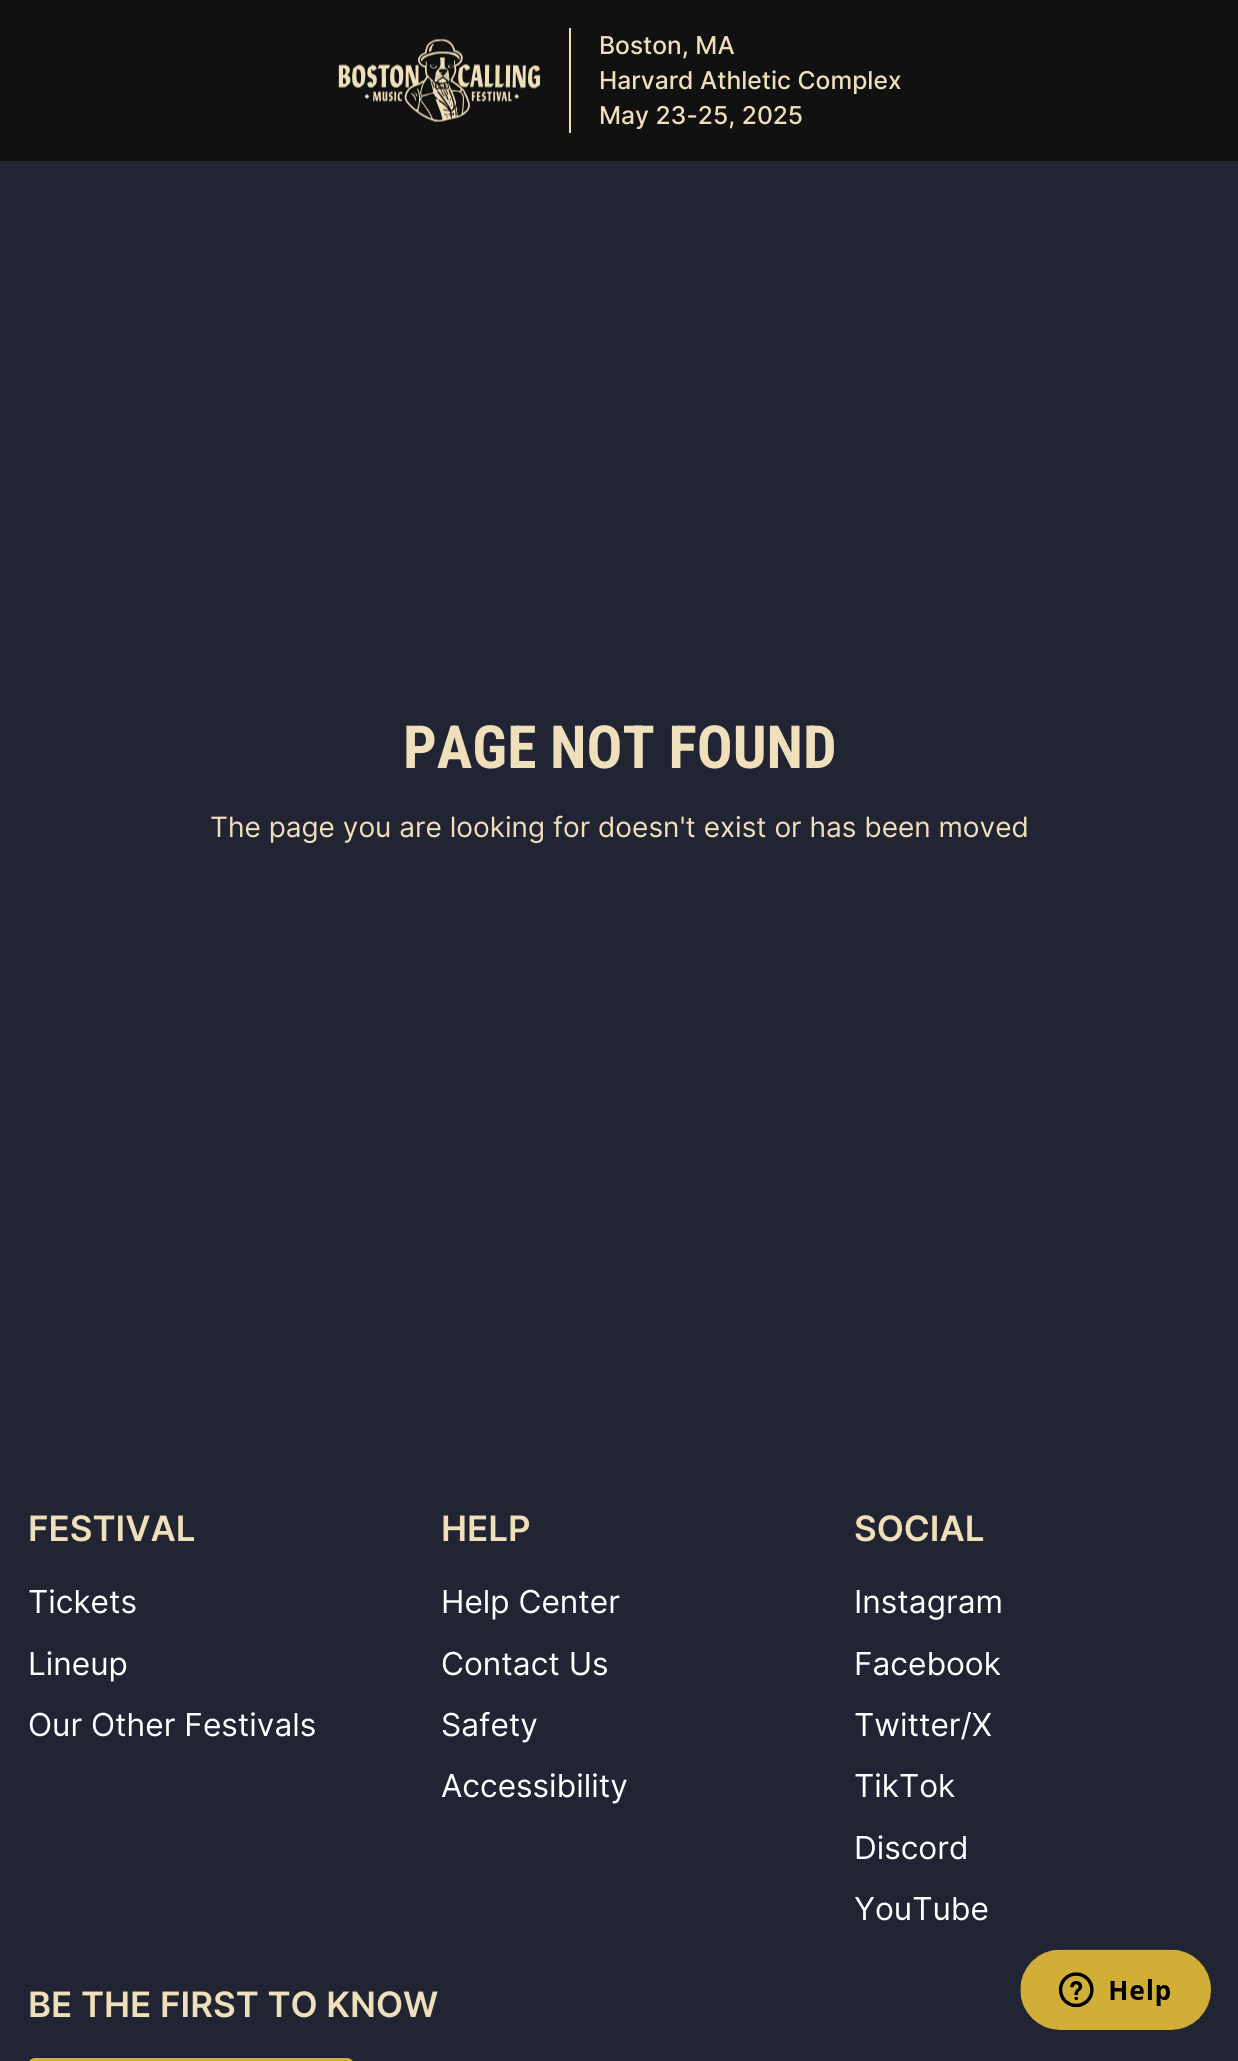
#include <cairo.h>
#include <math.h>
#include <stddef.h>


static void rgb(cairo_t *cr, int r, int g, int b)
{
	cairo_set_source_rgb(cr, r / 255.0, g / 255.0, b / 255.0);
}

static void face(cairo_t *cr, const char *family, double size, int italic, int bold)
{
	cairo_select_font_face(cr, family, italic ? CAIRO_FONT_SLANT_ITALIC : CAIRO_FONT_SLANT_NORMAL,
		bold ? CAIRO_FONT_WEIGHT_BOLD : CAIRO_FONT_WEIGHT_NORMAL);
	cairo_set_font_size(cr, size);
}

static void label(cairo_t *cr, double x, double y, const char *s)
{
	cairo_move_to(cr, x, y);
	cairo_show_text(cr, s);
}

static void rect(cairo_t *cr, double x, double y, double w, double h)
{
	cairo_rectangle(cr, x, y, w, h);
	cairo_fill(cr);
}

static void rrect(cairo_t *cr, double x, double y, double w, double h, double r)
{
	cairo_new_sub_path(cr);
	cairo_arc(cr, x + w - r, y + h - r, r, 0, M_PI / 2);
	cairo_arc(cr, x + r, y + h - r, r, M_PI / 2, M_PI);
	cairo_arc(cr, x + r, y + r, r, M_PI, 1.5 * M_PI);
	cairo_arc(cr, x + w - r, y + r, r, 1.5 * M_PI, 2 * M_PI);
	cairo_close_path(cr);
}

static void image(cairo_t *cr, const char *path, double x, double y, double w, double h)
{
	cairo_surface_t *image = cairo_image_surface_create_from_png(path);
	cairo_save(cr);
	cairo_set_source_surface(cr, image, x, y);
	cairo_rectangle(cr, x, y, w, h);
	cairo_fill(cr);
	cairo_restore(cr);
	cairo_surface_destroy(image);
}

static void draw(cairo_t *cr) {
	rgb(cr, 33, 36, 50);
	cairo_paint(cr);
	rgb(cr, 17, 17, 17);
	rect(cr, 0, 0, 1238, 161);
	image(cr, "image0.png", 338, 38, 203, 85);
	rgb(cr, 239, 223, 186);
	rect(cr, 569, 28, 2, 105);
	face(cr, "Inter Medium", 24.6, 0, 0);
	label(cr, 599, 54, "Boston, MA");
	label(cr, 599, 89, "Harvard Athletic Complex");
	label(cr, 599, 124, "May 23-25, 2025");
	face(cr, "Roboto Condensed", 59.5, 0, 1);
	label(cr, 403, 768, "PAGE NOT FOUND");
	face(cr, "Inter", 28, 0, 0);
	label(cr, 210, 837, "The page you are looking for doesn't exist or has been moved");
	face(cr, "Inter SemiBold", 35, 0, 0);
	label(cr, 28, 1541, "FESTIVAL");
	face(cr, "Inter", 31.6, 0, 0);
	rgb(cr, 255, 255, 255);
	label(cr, 28, 1613, "Tickets");
	label(cr, 28, 1675, "Lineup");
	label(cr, 28, 1736, "Our Other Festivals");
	face(cr, "Inter SemiBold", 35, 0, 0);
	rgb(cr, 239, 223, 186);
	label(cr, 441, 1541, "HELP");
	face(cr, "Inter", 31.6, 0, 0);
	rgb(cr, 255, 255, 255);
	label(cr, 441, 1613, "Help Center");
	label(cr, 441, 1675, "Contact Us");
	label(cr, 441, 1736, "Safety");
	label(cr, 441, 1797, "Accessibility");
	face(cr, "Inter SemiBold", 35, 0, 0);
	rgb(cr, 239, 223, 186);
	label(cr, 854, 1541, "SOCIAL");
	face(cr, "Inter", 31.6, 0, 0);
	rgb(cr, 255, 255, 255);
	label(cr, 854, 1613, "Instagram");
	label(cr, 854, 1675, "Facebook");
	label(cr, 854, 1736, "Twitter/X");
	label(cr, 854, 1797, "TikTok");
	label(cr, 854, 1859, "Discord");
	label(cr, 854, 1920, "YouTube");
	face(cr, "Inter SemiBold", 35, 0, 0);
	rgb(cr, 239, 223, 186);
	label(cr, 28, 2017, "BE THE FIRST TO KNOW");
	rrect(cr, 30, 2060, 322, 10, 5);
	rgb(cr, 210, 175, 58);
	cairo_set_line_width(cr, 4);
	cairo_stroke(cr);
	image(cr, "image1.png", 1020, 1949, 191, 81);
}

int main(void) {
	cairo_surface_t *surface = cairo_image_surface_create(CAIRO_FORMAT_RGB24, 1238, 2061);
	cairo_t *cr = cairo_create(surface);
	cairo_font_options_t *options = cairo_font_options_create();
	cairo_font_options_set_hint_metrics(options, CAIRO_HINT_METRICS_OFF);
	cairo_font_options_set_hint_style(options, CAIRO_HINT_STYLE_NONE);
	cairo_set_font_options(cr, options);
	cairo_set_miter_limit(cr, 4);
	draw(cr);
	cairo_surface_write_to_png(surface, "render.png");
	cairo_font_options_destroy(options);
	cairo_destroy(cr);
	cairo_surface_destroy(surface);
	return 0;
}
